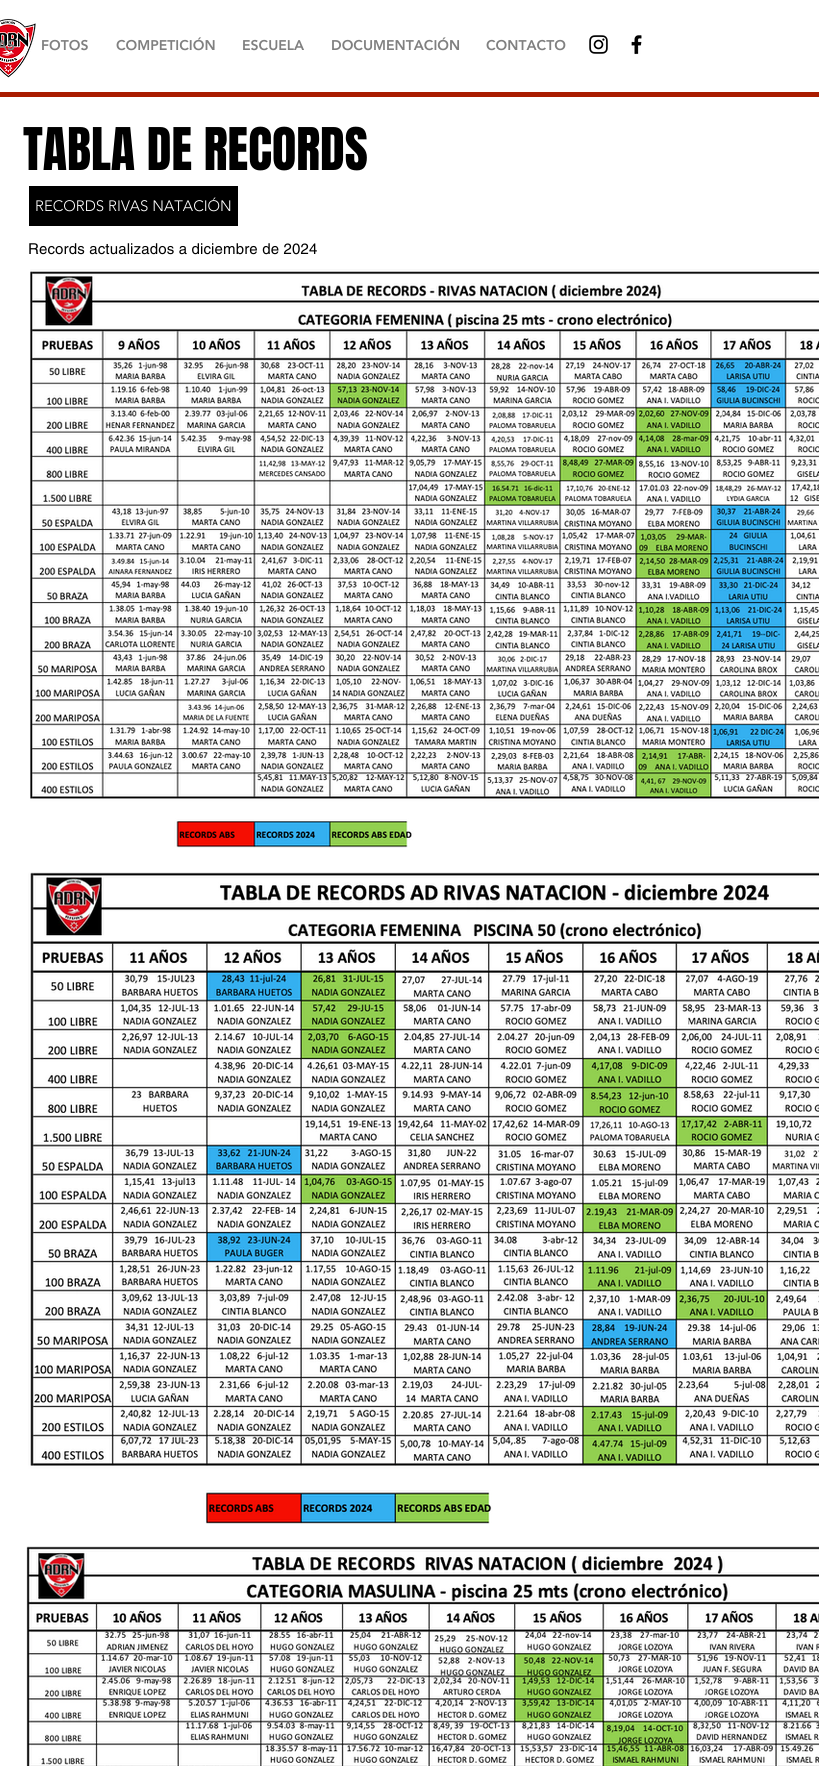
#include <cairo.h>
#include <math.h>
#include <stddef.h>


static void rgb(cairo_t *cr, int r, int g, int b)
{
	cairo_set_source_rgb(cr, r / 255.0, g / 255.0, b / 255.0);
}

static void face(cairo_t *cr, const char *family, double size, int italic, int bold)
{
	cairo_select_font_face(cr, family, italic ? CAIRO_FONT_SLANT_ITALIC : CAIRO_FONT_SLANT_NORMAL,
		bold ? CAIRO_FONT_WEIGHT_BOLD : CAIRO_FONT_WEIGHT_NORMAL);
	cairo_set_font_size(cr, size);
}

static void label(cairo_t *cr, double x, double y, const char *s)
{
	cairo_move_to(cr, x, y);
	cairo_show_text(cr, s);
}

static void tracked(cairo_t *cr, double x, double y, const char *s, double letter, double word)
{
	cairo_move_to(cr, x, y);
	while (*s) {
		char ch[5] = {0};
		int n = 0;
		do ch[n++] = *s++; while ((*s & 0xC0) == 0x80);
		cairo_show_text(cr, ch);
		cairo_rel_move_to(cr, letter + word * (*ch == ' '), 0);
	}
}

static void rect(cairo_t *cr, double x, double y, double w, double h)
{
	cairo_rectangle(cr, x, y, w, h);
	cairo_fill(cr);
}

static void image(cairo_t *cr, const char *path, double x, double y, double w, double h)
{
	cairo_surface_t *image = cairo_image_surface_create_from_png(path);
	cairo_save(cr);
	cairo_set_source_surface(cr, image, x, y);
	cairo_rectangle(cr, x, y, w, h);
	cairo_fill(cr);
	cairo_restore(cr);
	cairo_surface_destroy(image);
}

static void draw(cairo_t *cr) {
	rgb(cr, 255, 255, 255);
	cairo_paint(cr);
	image(cr, "image0.png", 0, 18, 36, 60);
	rgb(cr, 169, 28, 0);
	rect(cr, 0, 92, 819, 5);
	face(cr, "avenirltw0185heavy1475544 Black", 14, 0, 0);
	rgb(cr, 128, 128, 128);
	label(cr, -3, 50, "AS");
	label(cr, 41, 50, "FOTOS");
	label(cr, 116, 50, "COMPETICIÓN");
	label(cr, 242, 50, "ESCUELA");
	label(cr, 331, 50, "DOCUMENTACIÓN");
	label(cr, 486, 50, "CONTACTO");
	image(cr, "image1.png", 589, 35, 19, 19);
	image(cr, "image2.png", 631, 35, 11, 20);
	face(cr, "Anton", 50, 0, 0);
	rgb(cr, 0, 0, 0);
	label(cr, 23, 170, "TABLA DE RECORDS");
	rect(cr, 29, 186, 209, 40);
	face(cr, "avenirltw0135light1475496 Light", 15, 0, 0);
	rgb(cr, 255, 255, 255);
	label(cr, 35, 211, "RECORDS RIVAS NATACIÓN");
	face(cr, "helvetica", 15, 0, 0);
	rgb(cr, 0, 0, 0);
	tracked(cr, 28, 254, "Records actualizados a diciembre de 2024", 0.15, 0);
	image(cr, "image3.png", 30, 269, 789, 579);
	image(cr, "image4.png", 28, 872, 791, 652);
	image(cr, "image5.png", 26, 1546, 793, 220);
}

int main(void) {
	cairo_surface_t *surface = cairo_image_surface_create(CAIRO_FORMAT_RGB24, 819, 1766);
	cairo_t *cr = cairo_create(surface);
	cairo_font_options_t *options = cairo_font_options_create();
	cairo_font_options_set_hint_metrics(options, CAIRO_HINT_METRICS_OFF);
	cairo_font_options_set_hint_style(options, CAIRO_HINT_STYLE_NONE);
	cairo_set_font_options(cr, options);
	cairo_set_miter_limit(cr, 4);
	draw(cr);
	cairo_surface_write_to_png(surface, "render.png");
	cairo_font_options_destroy(options);
	cairo_destroy(cr);
	cairo_surface_destroy(surface);
	return 0;
}
